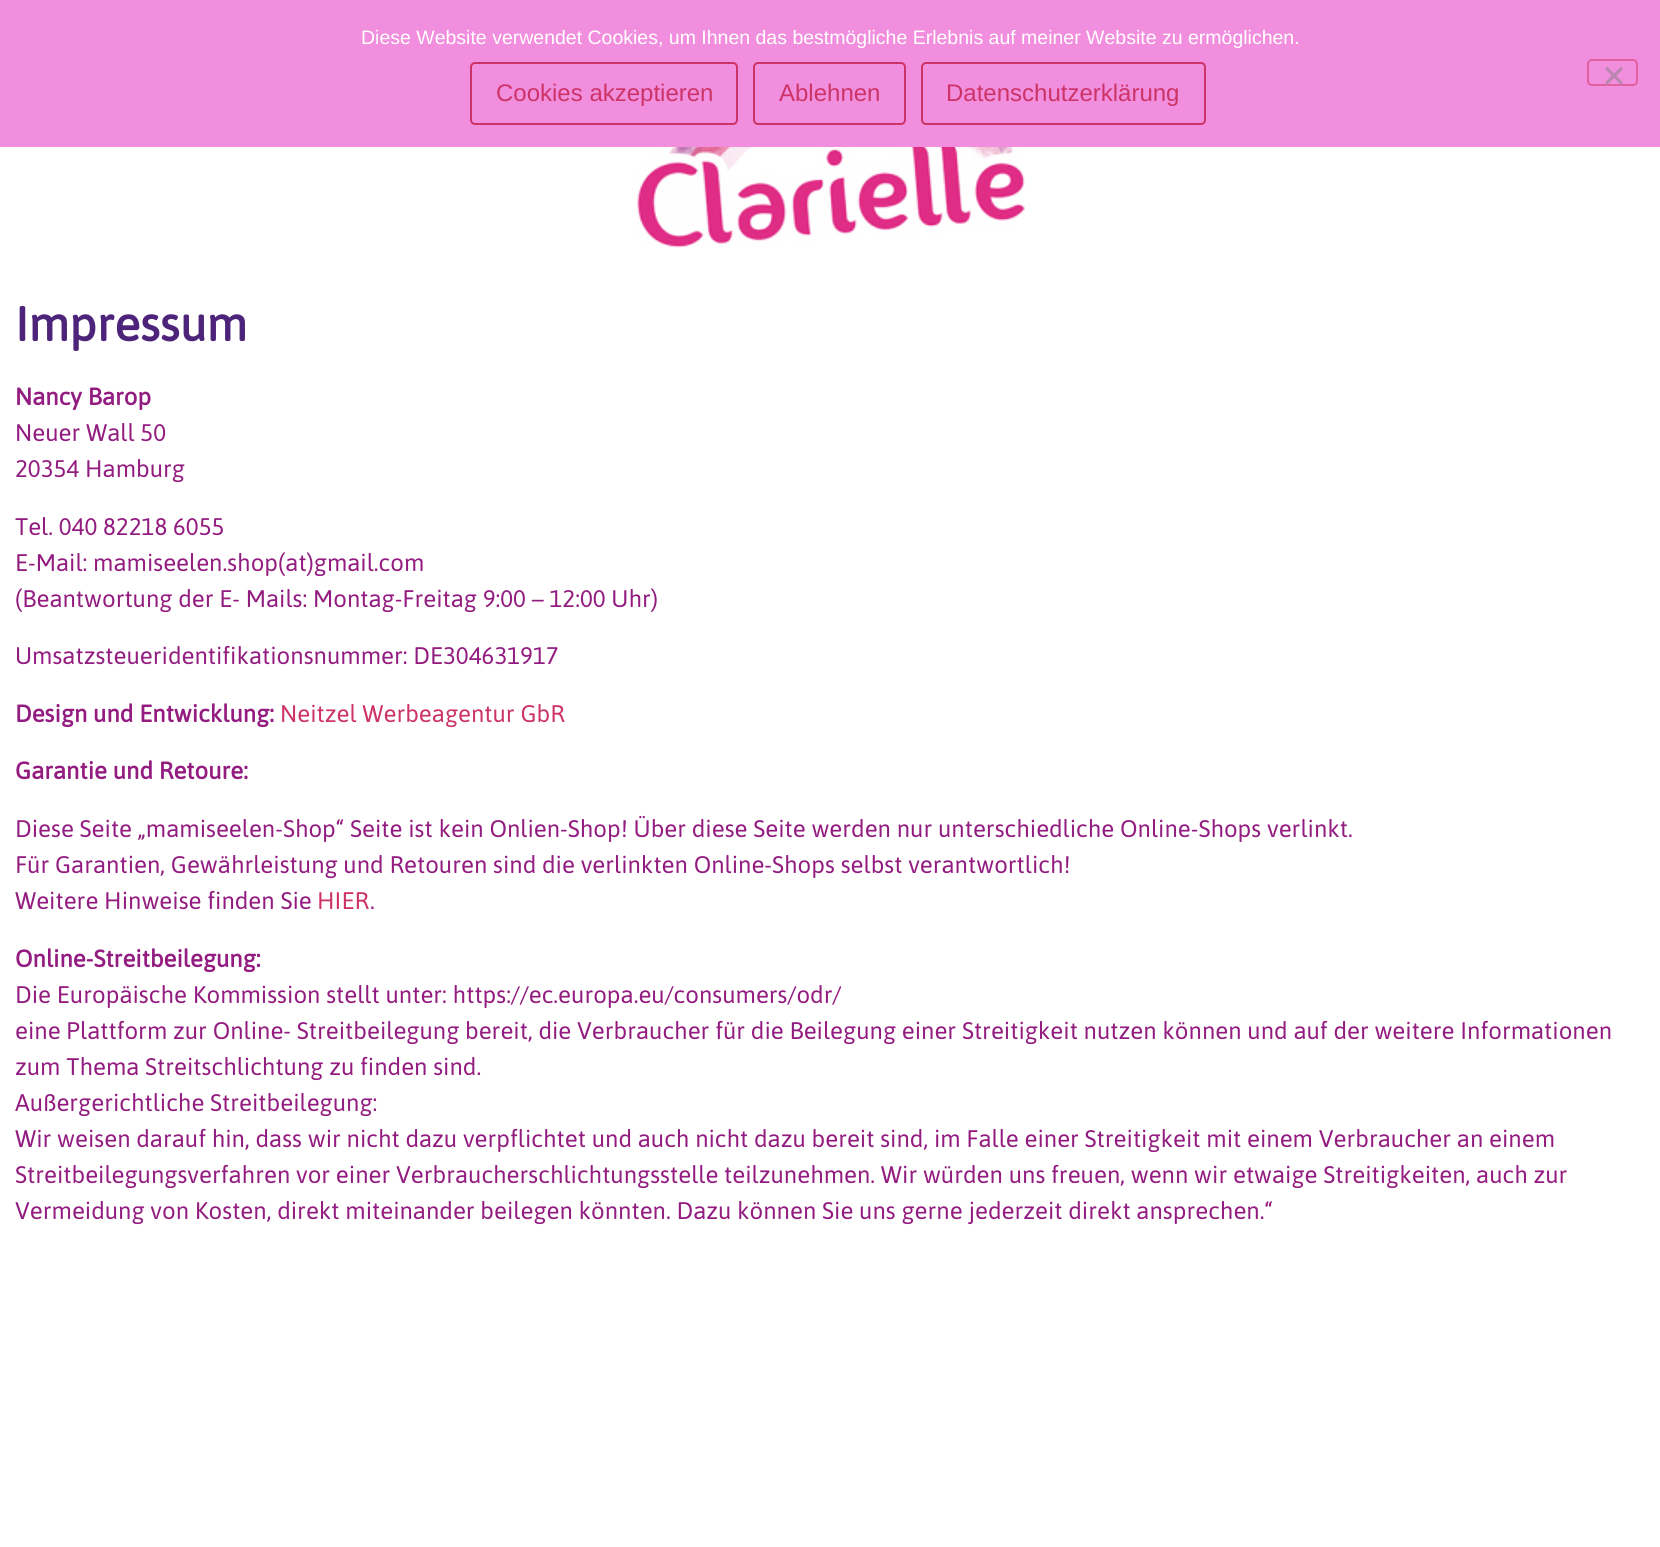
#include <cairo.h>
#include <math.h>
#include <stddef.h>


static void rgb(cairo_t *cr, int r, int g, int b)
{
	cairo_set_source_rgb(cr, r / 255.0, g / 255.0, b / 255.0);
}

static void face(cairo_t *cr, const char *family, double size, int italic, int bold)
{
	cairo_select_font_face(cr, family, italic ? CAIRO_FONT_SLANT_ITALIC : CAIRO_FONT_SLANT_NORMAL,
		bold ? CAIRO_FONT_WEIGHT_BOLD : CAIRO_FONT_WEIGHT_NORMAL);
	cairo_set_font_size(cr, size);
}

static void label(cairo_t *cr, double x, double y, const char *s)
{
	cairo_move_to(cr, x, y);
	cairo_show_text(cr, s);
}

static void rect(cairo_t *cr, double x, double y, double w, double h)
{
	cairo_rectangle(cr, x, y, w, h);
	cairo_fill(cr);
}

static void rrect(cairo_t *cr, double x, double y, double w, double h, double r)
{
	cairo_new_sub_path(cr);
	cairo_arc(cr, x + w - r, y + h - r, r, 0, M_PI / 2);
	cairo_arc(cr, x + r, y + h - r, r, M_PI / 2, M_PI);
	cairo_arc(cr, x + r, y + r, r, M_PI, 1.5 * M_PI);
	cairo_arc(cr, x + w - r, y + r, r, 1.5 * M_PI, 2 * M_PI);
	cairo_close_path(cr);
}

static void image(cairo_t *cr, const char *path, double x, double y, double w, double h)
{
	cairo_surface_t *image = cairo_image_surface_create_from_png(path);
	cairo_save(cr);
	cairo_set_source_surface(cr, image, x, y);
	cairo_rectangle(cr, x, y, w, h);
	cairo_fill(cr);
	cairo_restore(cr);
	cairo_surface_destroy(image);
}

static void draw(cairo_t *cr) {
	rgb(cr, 255, 255, 255);
	cairo_paint(cr);
	rgb(cr, 242, 142, 222);
	rect(cr, 0, 0, 1660, 147);
	face(cr, "Liberation Sans", 19.5, 0, 0);
	rgb(cr, 255, 255, 255);
	label(cr, 361, 44, "Diese Website verwendet Cookies, um Ihnen das bestmögliche Erlebnis auf meiner Website zu ermöglichen.");
	rrect(cr, 1588, 60, 49, 25, 4);
	rgb(cr, 223, 97, 162);
	cairo_stroke(cr);
	rgb(cr, 185, 135, 175);
	cairo_new_path(cr);
	cairo_move_to(cr, 1621, 66.5);
	cairo_line_to(cr, 1623, 69);
	cairo_line_to(cr, 1607, 85);
	cairo_line_to(cr, 1605, 82.5);
	cairo_close_path(cr);
	cairo_fill(cr);
	cairo_new_path(cr);
	cairo_move_to(cr, 1605, 69);
	cairo_line_to(cr, 1607, 66.5);
	cairo_line_to(cr, 1623, 82.5);
	cairo_line_to(cr, 1621, 85);
	cairo_close_path(cr);
	cairo_fill(cr);
	rrect(cr, 471, 63, 266, 61, 4);
	rgb(cr, 204, 51, 102);
	cairo_stroke(cr);
	face(cr, "Liberation Sans", 24, 0, 0);
	label(cr, 496, 101, "Cookies akzeptieren");
	rrect(cr, 754, 63, 151, 61, 4);
	cairo_stroke(cr);
	label(cr, 779, 101, "Ablehnen");
	rrect(cr, 922, 63, 283, 61, 4);
	cairo_stroke(cr);
	label(cr, 946, 101, "Datenschutzerklärung");
	image(cr, "image0.png", 637, 147, 388, 101);
	face(cr, "Asap", 48, 0, 1);
	rgb(cr, 77, 36, 122);
	label(cr, 15, 341, "Impressum");
	face(cr, "Asap", 24, 0, 1);
	rgb(cr, 147, 28, 128);
	label(cr, 15, 405, "Nancy Barop");
	face(cr, "Asap", 24, 0, 0);
	label(cr, 15, 441, "Neuer Wall 50");
	label(cr, 15, 477, "20354 Hamburg");
	label(cr, 15, 535, "Tel. 040 82218 6055");
	label(cr, 15, 571, "E-Mail: mamiseelen.shop(at)gmail.com");
	label(cr, 15, 607, "(Beantwortung der E- Mails: Montag-Freitag 9:00 – 12:00 Uhr)");
	label(cr, 15, 664, "Umsatzsteueridentifikationsnummer: DE304631917");
	face(cr, "Asap", 24, 0, 1);
	label(cr, 15, 722, "Design und Entwicklung:");
	face(cr, "Asap", 24, 0, 0);
	rgb(cr, 204, 51, 102);
	label(cr, 280, 722, "Neitzel Werbeagentur GbR");
	face(cr, "Asap", 24, 0, 1);
	rgb(cr, 147, 28, 128);
	label(cr, 15, 779, "Garantie und Retoure:");
	face(cr, "Asap", 24, 0, 0);
	label(cr, 15, 837, "Diese Seite „mamiseelen-Shop“ Seite ist kein Onlien-Shop! Über diese Seite werden nur unterschiedliche Online-Shops verlinkt.");
	label(cr, 15, 873, "Für Garantien, Gewährleistung und Retouren sind die verlinkten Online-Shops selbst verantwortlich!");
	label(cr, 15, 909, "Weitere Hinweise finden Sie");
	rgb(cr, 204, 51, 102);
	label(cr, 317, 909, "HIER");
	rgb(cr, 147, 28, 128);
	label(cr, 370, 909, ".");
	face(cr, "Asap", 24, 0, 1);
	label(cr, 15, 967, "Online-Streitbeilegung:");
	face(cr, "Asap", 24, 0, 0);
	label(cr, 15, 1003, "Die Europäische Kommission stellt unter: https://ec.europa.eu/consumers/odr/");
	label(cr, 15, 1039, "eine Plattform zur Online- Streitbeilegung bereit, die Verbraucher für die Beilegung einer Streitigkeit nutzen können und auf der weitere Informationen");
	label(cr, 15, 1075, "zum Thema Streitschlichtung zu finden sind.");
	label(cr, 15, 1111, "Außergerichtliche Streitbeilegung:");
	label(cr, 15, 1147, "Wir weisen darauf hin, dass wir nicht dazu verpflichtet und auch nicht dazu bereit sind, im Falle einer Streitigkeit mit einem Verbraucher an einem");
	label(cr, 15, 1183, "Streitbeilegungsverfahren vor einer Verbraucherschlichtungsstelle teilzunehmen. Wir würden uns freuen, wenn wir etwaige Streitigkeiten, auch zur");
	label(cr, 15, 1219, "Vermeidung von Kosten, direkt miteinander beilegen könnten. Dazu können Sie uns gerne jederzeit direkt ansprechen.“");
}

int main(void) {
	cairo_surface_t *surface = cairo_image_surface_create(CAIRO_FORMAT_RGB24, 1660, 1547);
	cairo_t *cr = cairo_create(surface);
	cairo_font_options_t *options = cairo_font_options_create();
	cairo_font_options_set_hint_metrics(options, CAIRO_HINT_METRICS_OFF);
	cairo_font_options_set_hint_style(options, CAIRO_HINT_STYLE_NONE);
	cairo_set_font_options(cr, options);
	cairo_set_miter_limit(cr, 4);
	draw(cr);
	cairo_surface_write_to_png(surface, "render.png");
	cairo_font_options_destroy(options);
	cairo_destroy(cr);
	cairo_surface_destroy(surface);
	return 0;
}
